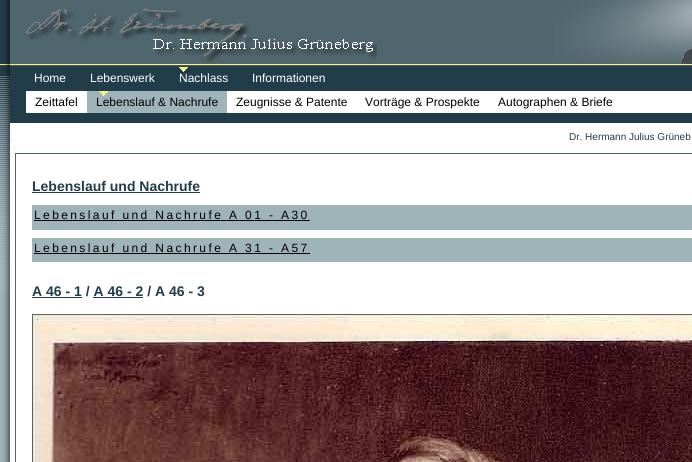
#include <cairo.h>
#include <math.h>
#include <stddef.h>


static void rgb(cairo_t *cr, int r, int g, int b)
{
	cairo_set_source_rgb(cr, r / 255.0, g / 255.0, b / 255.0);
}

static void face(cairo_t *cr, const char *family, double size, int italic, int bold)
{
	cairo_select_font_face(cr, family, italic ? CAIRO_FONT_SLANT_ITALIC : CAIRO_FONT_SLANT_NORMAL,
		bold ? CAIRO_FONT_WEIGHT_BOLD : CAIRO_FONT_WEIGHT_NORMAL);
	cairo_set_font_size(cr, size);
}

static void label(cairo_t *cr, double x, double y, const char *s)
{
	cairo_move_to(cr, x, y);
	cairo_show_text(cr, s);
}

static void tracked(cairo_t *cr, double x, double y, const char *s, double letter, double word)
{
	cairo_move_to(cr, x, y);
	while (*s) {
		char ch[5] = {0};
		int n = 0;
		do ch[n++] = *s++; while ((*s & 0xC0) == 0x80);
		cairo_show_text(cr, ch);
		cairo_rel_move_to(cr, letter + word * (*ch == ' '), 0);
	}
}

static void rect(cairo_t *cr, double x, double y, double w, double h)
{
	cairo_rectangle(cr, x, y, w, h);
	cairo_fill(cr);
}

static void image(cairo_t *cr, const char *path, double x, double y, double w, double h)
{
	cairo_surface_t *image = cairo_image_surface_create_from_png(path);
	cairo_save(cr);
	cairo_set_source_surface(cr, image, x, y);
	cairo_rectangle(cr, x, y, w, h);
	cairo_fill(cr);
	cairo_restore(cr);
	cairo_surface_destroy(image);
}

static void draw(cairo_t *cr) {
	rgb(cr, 159, 180, 185);
	cairo_paint(cr);
	image(cr, "image0.png", 0, 0, 10, 293);
	image(cr, "image1.png", 1, 0, 691, 67);
	image(cr, "image2.png", 26, 8, 351, 55);
	image(cr, "image3.png", 554, 0, 138, 64);
	image(cr, "image4.png", 2, 67, 690, 56);
	face(cr, "Liberation Sans", 12, 0, 0);
	rgb(cr, 255, 255, 255);
	label(cr, 34, 82, "Home");
	label(cr, 90, 82, "Lebenswerk");
	image(cr, "image5.png", 179, 67, 9, 5);
	label(cr, 179, 82, "Nachlass");
	label(cr, 252, 82, "Informationen");
	rgb(cr, 0, 0, 0);
	label(cr, 35, 106, "Zeittafel");
	rgb(cr, 159, 180, 185);
	rect(cr, 87, 91, 140, 22);
	image(cr, "image6.png", 99, 91, 9, 5);
	rgb(cr, 0, 0, 0);
	label(cr, 96, 106, "Lebenslauf & Nachrufe");
	label(cr, 236, 106, "Zeugnisse & Patente");
	label(cr, 365, 106, "Vorträge & Prospekte");
	label(cr, 498, 106, "Autographen & Briefe");
	image(cr, "image7.png", 2, 123, 690, 34);
	face(cr, "Liberation Sans", 10, 0, 0);
	rgb(cr, 34, 61, 74);
	label(cr, 569, 140, "Dr. Hermann Julius Grüneb");
	image(cr, "image8.png", 2, 157, 690, 305);
	face(cr, "Liberation Sans", 14, 0, 1);
	label(cr, 32, 191, "Lebenslauf und Nachrufe");
	rect(cr, 32, 192, 168, 1);
	rgb(cr, 159, 180, 185);
	rect(cr, 32, 205, 660, 25);
	face(cr, "Liberation Sans", 12, 0, 0);
	rgb(cr, 0, 0, 0);
	tracked(cr, 34, 219, "Lebenslauf und Nachrufe A 01 - A30", 2.4, 0);
	rect(cr, 34, 220, 276, 1);
	rgb(cr, 159, 180, 185);
	rect(cr, 32, 238, 660, 24);
	rgb(cr, 0, 0, 0);
	tracked(cr, 34, 252, "Lebenslauf und Nachrufe A 31 - A57", 2.4, 0);
	rect(cr, 34, 253, 276, 1);
	face(cr, "Liberation Sans", 14, 0, 1);
	rgb(cr, 34, 61, 74);
	label(cr, 32, 296, "A 46 - 1 / A 46 - 2 / A 46 - 3");
	rect(cr, 32, 297, 50, 1);
	rect(cr, 93, 297, 50, 1);
	image(cr, "image9.png", 32, 314, 660, 148);
}

int main(void) {
	cairo_surface_t *surface = cairo_image_surface_create(CAIRO_FORMAT_RGB24, 692, 462);
	cairo_t *cr = cairo_create(surface);
	cairo_font_options_t *options = cairo_font_options_create();
	cairo_font_options_set_hint_metrics(options, CAIRO_HINT_METRICS_OFF);
	cairo_font_options_set_hint_style(options, CAIRO_HINT_STYLE_NONE);
	cairo_set_font_options(cr, options);
	cairo_set_miter_limit(cr, 4);
	draw(cr);
	cairo_surface_write_to_png(surface, "render.png");
	cairo_font_options_destroy(options);
	cairo_destroy(cr);
	cairo_surface_destroy(surface);
	return 0;
}
